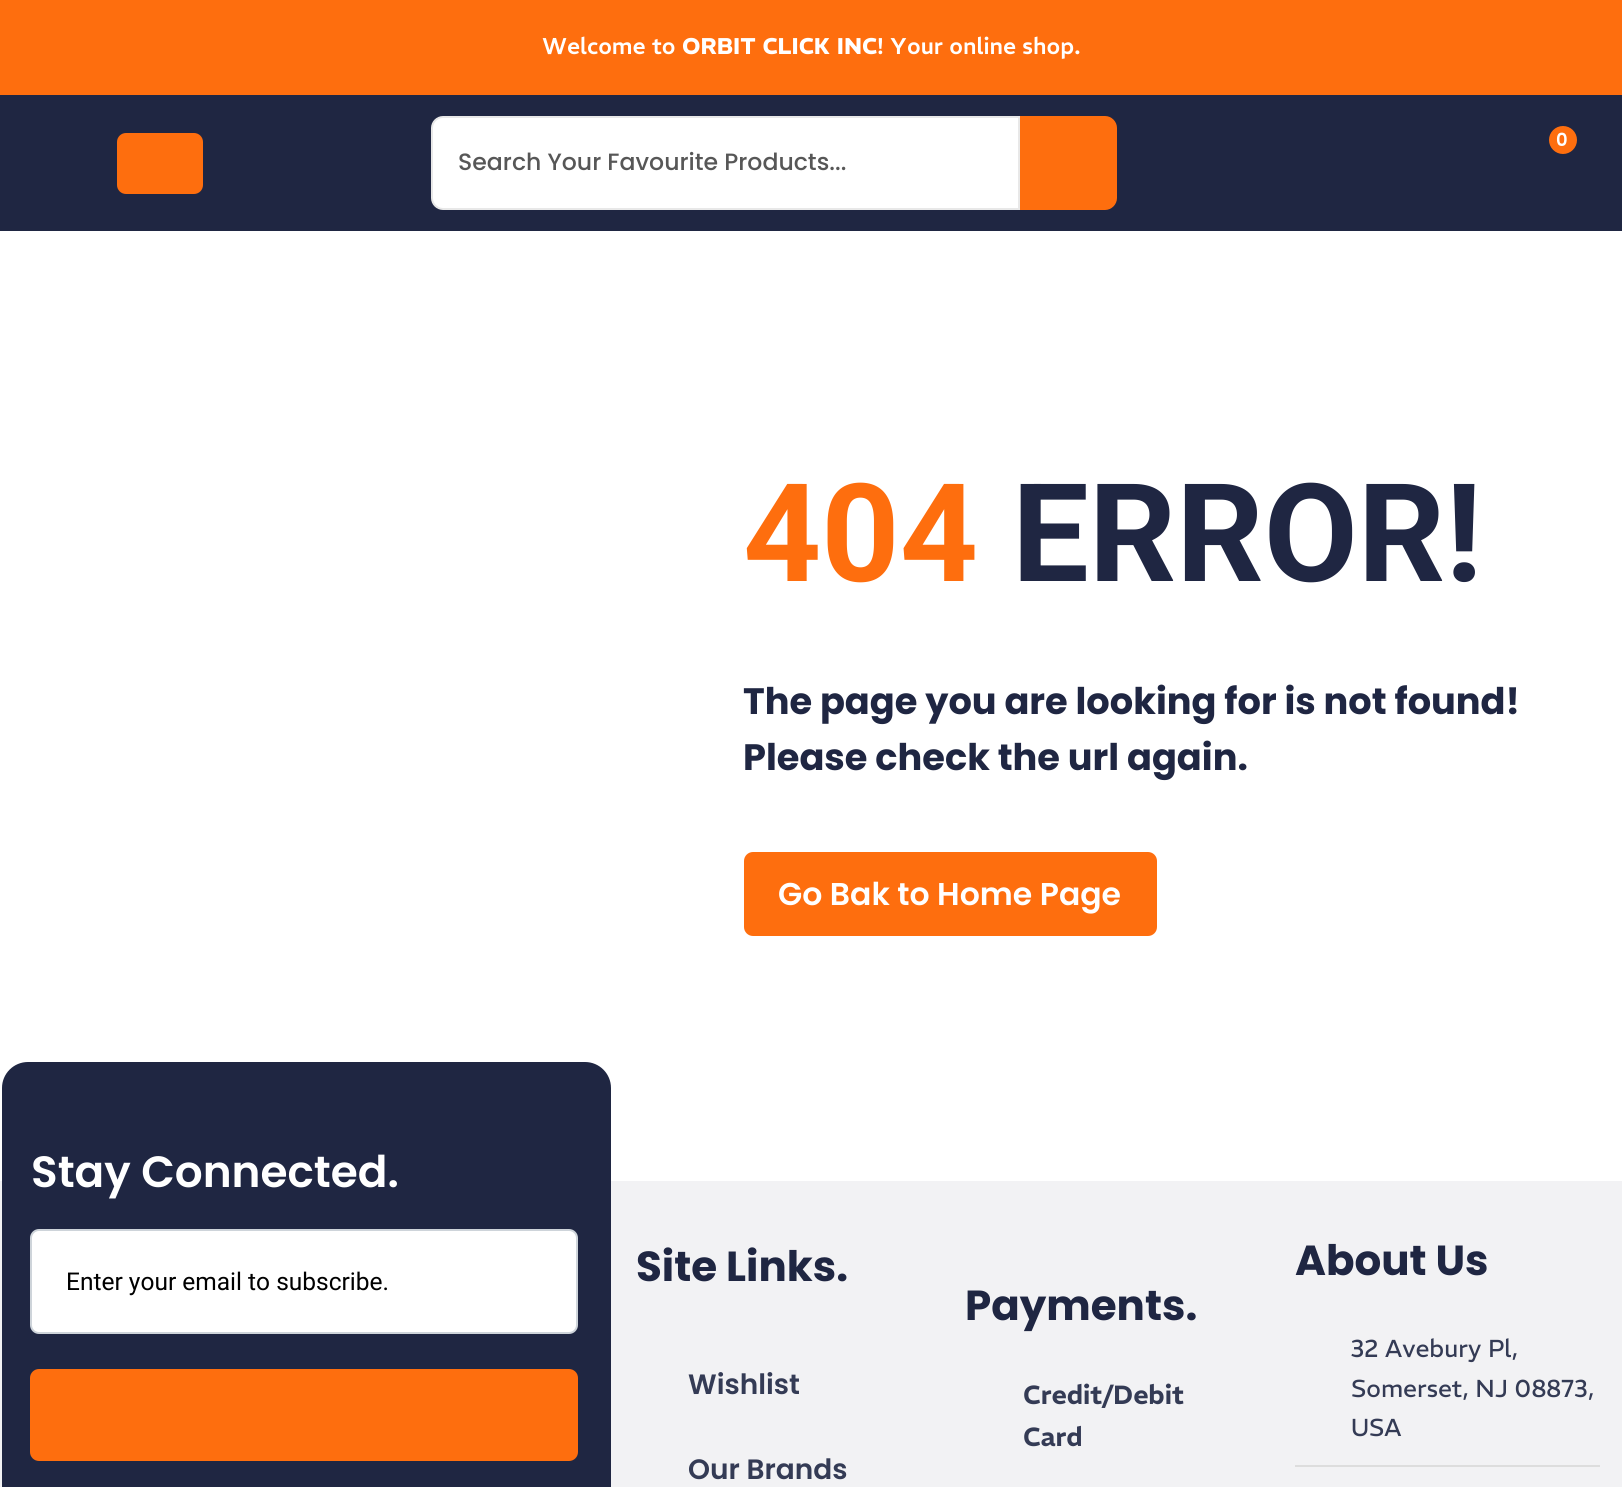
#include <cairo.h>
#include <math.h>
#include <stddef.h>


static void rgb(cairo_t *cr, int r, int g, int b)
{
	cairo_set_source_rgb(cr, r / 255.0, g / 255.0, b / 255.0);
}

static void face(cairo_t *cr, const char *family, double size, int italic, int bold)
{
	cairo_select_font_face(cr, family, italic ? CAIRO_FONT_SLANT_ITALIC : CAIRO_FONT_SLANT_NORMAL,
		bold ? CAIRO_FONT_WEIGHT_BOLD : CAIRO_FONT_WEIGHT_NORMAL);
	cairo_set_font_size(cr, size);
}

static void label(cairo_t *cr, double x, double y, const char *s)
{
	cairo_move_to(cr, x, y);
	cairo_show_text(cr, s);
}

static void rect(cairo_t *cr, double x, double y, double w, double h)
{
	cairo_rectangle(cr, x, y, w, h);
	cairo_fill(cr);
}

static void rrect(cairo_t *cr, double x, double y, double w, double h, double r)
{
	cairo_new_sub_path(cr);
	cairo_arc(cr, x + w - r, y + h - r, r, 0, M_PI / 2);
	cairo_arc(cr, x + r, y + h - r, r, M_PI / 2, M_PI);
	cairo_arc(cr, x + r, y + r, r, M_PI, 1.5 * M_PI);
	cairo_arc(cr, x + w - r, y + r, r, 1.5 * M_PI, 2 * M_PI);
	cairo_close_path(cr);
}

static void draw(cairo_t *cr) {
	rgb(cr, 254, 110, 14);
	cairo_paint(cr);
	face(cr, "REM Medium", 22.75, 0, 0);
	rgb(cr, 255, 255, 255);
	label(cr, 542, 54, "Welcome to");
	face(cr, "REM", 22.75, 0, 1);
	label(cr, 682, 54, "ORBIT CLICK INC");
	face(cr, "REM Medium", 22.75, 0, 0);
	label(cr, 877, 54, "! Your online shop.");
	rgb(cr, 31, 38, 66);
	rect(cr, 0, 95, 1622, 136);
	rgb(cr, 254, 110, 14);
	rrect(cr, 117, 133, 86, 61, 9);
	cairo_fill(cr);
	cairo_arc(cr, 1563, 140, 14, 0, 2 * M_PI);
	cairo_fill(cr);
	face(cr, "Poppins SemiBold", 18, 0, 0);
	rgb(cr, 255, 255, 255);
	label(cr, 1556, 146, "0");
	cairo_new_path(cr);
	cairo_move_to(cr, 443, 117);
	cairo_line_to(cr, 1019, 117);
	cairo_line_to(cr, 1019, 209);
	cairo_line_to(cr, 443, 209);
	cairo_curve_to(cr, 437, 209, 432, 204, 432, 198);
	cairo_line_to(cr, 432, 128);
	cairo_curve_to(cr, 432, 122, 437, 117, 443, 117);
	cairo_close_path(cr);
	cairo_fill_preserve(cr);
	rgb(cr, 232, 232, 232);
	cairo_stroke(cr);
	face(cr, "Poppins Medium", 23.6, 0, 0);
	rgb(cr, 87, 87, 87);
	label(cr, 458, 170, "Search Your Favourite Products...");
	rgb(cr, 254, 110, 14);
	cairo_new_path(cr);
	cairo_move_to(cr, 1020, 116);
	cairo_line_to(cr, 1105, 116);
	cairo_curve_to(cr, 1111.5, 116, 1117, 121.5, 1117, 128);
	cairo_line_to(cr, 1117, 198);
	cairo_curve_to(cr, 1117, 204.5, 1111.5, 210, 1105, 210);
	cairo_line_to(cr, 1020, 210);
	cairo_close_path(cr);
	cairo_fill(cr);
	rgb(cr, 255, 255, 255);
	rect(cr, 0, 231, 1622, 950);
	face(cr, "Roboto", 136.5, 0, 1);
	rgb(cr, 254, 110, 14);
	label(cr, 743, 581, "404");
	rgb(cr, 31, 38, 66);
	label(cr, 1012, 581, "ERROR!");
	face(cr, "Poppins", 36.75, 0, 1);
	label(cr, 743, 714, "The page you are looking for is not found!");
	label(cr, 743, 770, "Please check the url again.");
	rgb(cr, 254, 110, 14);
	rrect(cr, 744, 852, 413, 84, 9);
	cairo_fill(cr);
	face(cr, "Poppins SemiBold", 31.5, 0, 0);
	rgb(cr, 255, 255, 255);
	label(cr, 778, 905, "Go Bak to Home Page");
	rgb(cr, 242, 242, 244);
	rect(cr, 0, 1181, 1622, 306);
	rgb(cr, 31, 38, 66);
	rrect(cr, 2, 1062, 609, 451, 26);
	cairo_fill(cr);
	face(cr, "Poppins SemiBold", 43.75, 0, 0);
	rgb(cr, 255, 255, 255);
	label(cr, 31, 1187, "Stay Connected.");
	rrect(cr, 31, 1230, 546, 103, 8);
	cairo_fill_preserve(cr);
	rgb(cr, 206, 212, 218);
	cairo_stroke(cr);
	face(cr, "Roboto", 24.5, 0, 0);
	rgb(cr, 0, 0, 0);
	label(cr, 66, 1290, "Enter your email to subscribe.");
	rgb(cr, 254, 110, 14);
	rrect(cr, 30, 1369, 548, 92, 9);
	cairo_fill(cr);
	face(cr, "Poppins", 42, 0, 1);
	rgb(cr, 31, 38, 66);
	label(cr, 636, 1281, "Site Links.");
	face(cr, "Poppins SemiBold", 28, 0, 0);
	rgb(cr, 52, 59, 85);
	label(cr, 688, 1394, "Wishlist");
	label(cr, 688, 1479, "Our Brands");
	face(cr, "Poppins", 42, 0, 1);
	rgb(cr, 31, 38, 66);
	label(cr, 965, 1320, "Payments.");
	face(cr, "REM SemiBold", 26.25, 0, 0);
	rgb(cr, 52, 59, 85);
	label(cr, 1023, 1404, "Credit/Debit");
	label(cr, 1023, 1446, "Card");
	face(cr, "Poppins", 42, 0, 1);
	rgb(cr, 31, 38, 66);
	label(cr, 1295, 1275, "About Us");
	face(cr, "REM", 24.5, 0, 0);
	rgb(cr, 52, 59, 85);
	label(cr, 1351, 1357, "32 Avebury Pl,");
	label(cr, 1351, 1397, "Somerset, NJ 08873,");
	label(cr, 1351, 1436, "USA");
	rgb(cr, 221, 221, 221);
	rect(cr, 1295, 1465, 305, 2);
}

int main(void) {
	cairo_surface_t *surface = cairo_image_surface_create(CAIRO_FORMAT_RGB24, 1622, 1487);
	cairo_t *cr = cairo_create(surface);
	cairo_font_options_t *options = cairo_font_options_create();
	cairo_font_options_set_hint_metrics(options, CAIRO_HINT_METRICS_OFF);
	cairo_font_options_set_hint_style(options, CAIRO_HINT_STYLE_NONE);
	cairo_set_font_options(cr, options);
	cairo_set_miter_limit(cr, 4);
	draw(cr);
	cairo_surface_write_to_png(surface, "render.png");
	cairo_font_options_destroy(options);
	cairo_destroy(cr);
	cairo_surface_destroy(surface);
	return 0;
}
